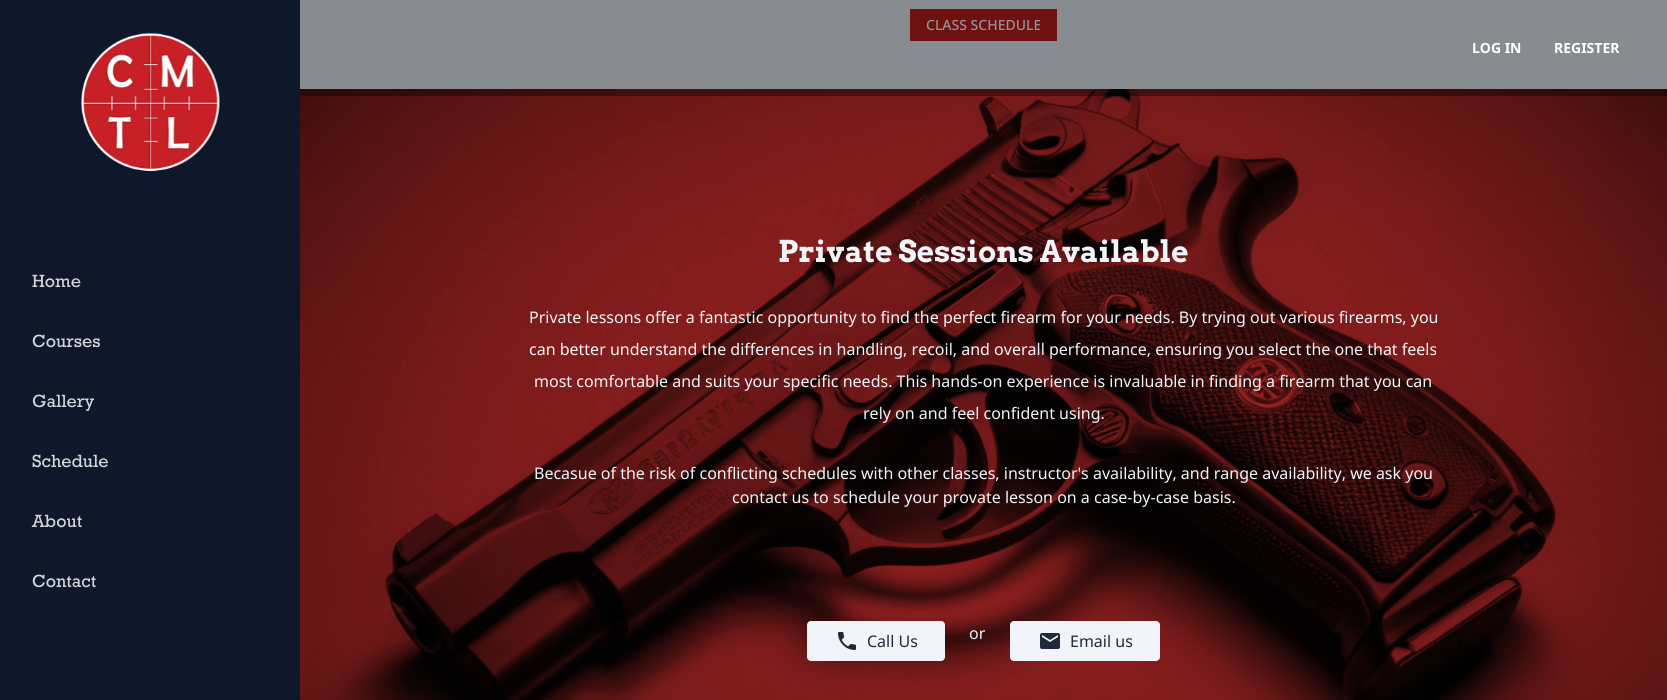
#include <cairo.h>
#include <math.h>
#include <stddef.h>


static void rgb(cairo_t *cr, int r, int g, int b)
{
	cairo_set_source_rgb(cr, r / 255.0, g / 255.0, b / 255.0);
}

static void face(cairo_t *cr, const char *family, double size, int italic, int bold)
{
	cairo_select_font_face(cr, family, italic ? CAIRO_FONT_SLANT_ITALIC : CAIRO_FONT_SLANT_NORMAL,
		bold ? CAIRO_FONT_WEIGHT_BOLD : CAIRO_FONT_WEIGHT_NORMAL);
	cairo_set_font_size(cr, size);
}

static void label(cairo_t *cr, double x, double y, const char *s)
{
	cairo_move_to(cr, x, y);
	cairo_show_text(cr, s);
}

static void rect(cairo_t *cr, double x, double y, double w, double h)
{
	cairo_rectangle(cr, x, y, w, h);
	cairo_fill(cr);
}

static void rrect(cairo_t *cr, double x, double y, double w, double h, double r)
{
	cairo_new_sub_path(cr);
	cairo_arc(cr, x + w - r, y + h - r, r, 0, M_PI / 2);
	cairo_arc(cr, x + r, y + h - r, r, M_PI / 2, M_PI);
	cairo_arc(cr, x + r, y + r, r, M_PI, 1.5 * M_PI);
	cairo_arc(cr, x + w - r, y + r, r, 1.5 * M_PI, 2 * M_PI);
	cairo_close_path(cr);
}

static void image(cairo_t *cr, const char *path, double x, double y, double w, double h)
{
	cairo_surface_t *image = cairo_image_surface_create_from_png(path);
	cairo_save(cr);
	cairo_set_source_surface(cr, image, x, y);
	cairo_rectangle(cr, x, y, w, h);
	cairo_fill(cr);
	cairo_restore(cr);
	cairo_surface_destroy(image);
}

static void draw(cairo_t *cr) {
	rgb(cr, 226, 232, 240);
	cairo_paint(cr);
	rgb(cr, 15, 23, 42);
	rect(cr, 0, 0, 300, 700);
	image(cr, "image0.png", 81, 33, 139, 138);
	face(cr, "Rockwell", 18, 0, 0);
	rgb(cr, 209, 213, 219);
	label(cr, 32, 287, "Home");
	label(cr, 32, 347, "Courses");
	label(cr, 32, 407, "Gallery");
	label(cr, 32, 467, "Schedule");
	label(cr, 32, 527, "About");
	label(cr, 32, 587, "Contact");
	rgb(cr, 185, 28, 28);
	rect(cr, 910, 9, 147, 32);
	face(cr, "Noto Sans Medium", 14, 0, 0);
	rgb(cr, 241, 245, 249);
	label(cr, 926, 30, "CLASS SCHEDULE");
	image(cr, "image1.png", 300, 89, 1367, 611);
	face(cr, "Arvo", 30, 0, 1);
	label(cr, 778, 262, "Private Sessions Available");
	face(cr, "Noto Sans", 16, 0, 0);
	label(cr, 529, 323, "Private lessons offer a fantastic opportunity to find the perfect firearm for your needs. By trying out various firearms, you");
	label(cr, 529, 355, "can better understand the differences in handling, recoil, and overall performance, ensuring you select the one that feels");
	label(cr, 534, 387, "most comfortable and suits your specific needs. This hands-on experience is invaluable in finding a firearm that you can");
	label(cr, 863, 419, "rely on and feel confident using.");
	label(cr, 534, 479, "Becasue of the risk of conflicting schedules with other classes, instructor's availability, and range availability, we ask you");
	label(cr, 732, 503, "contact us to schedule your provate lesson on a case-by-case basis.");
	rrect(cr, 807, 621, 138, 40, 4);
	cairo_fill(cr);
	image(cr, "image2.png", 838, 632, 18, 18);
	rgb(cr, 30, 41, 59);
	label(cr, 867, 647, "Call Us");
	rgb(cr, 241, 245, 249);
	label(cr, 969, 639, "or");
	rrect(cr, 1010, 621, 150, 40, 4);
	cairo_fill(cr);
	image(cr, "image3.png", 1040, 633, 20, 16);
	rgb(cr, 30, 41, 59);
	label(cr, 1070, 647, "Email us");
	cairo_set_source_rgba(cr, 0, 0, 0, 0.4);
	rect(cr, 300, 0, 1367, 96);
	face(cr, "Noto Sans", 14, 0, 1);
	rgb(cr, 255, 255, 255);
	label(cr, 1472, 53, "LOG IN");
	label(cr, 1554, 53, "REGISTER");
}

int main(void) {
	cairo_surface_t *surface = cairo_image_surface_create(CAIRO_FORMAT_RGB24, 1667, 700);
	cairo_t *cr = cairo_create(surface);
	cairo_font_options_t *options = cairo_font_options_create();
	cairo_font_options_set_hint_metrics(options, CAIRO_HINT_METRICS_OFF);
	cairo_font_options_set_hint_style(options, CAIRO_HINT_STYLE_NONE);
	cairo_set_font_options(cr, options);
	cairo_set_miter_limit(cr, 4);
	draw(cr);
	cairo_surface_write_to_png(surface, "render.png");
	cairo_font_options_destroy(options);
	cairo_destroy(cr);
	cairo_surface_destroy(surface);
	return 0;
}
